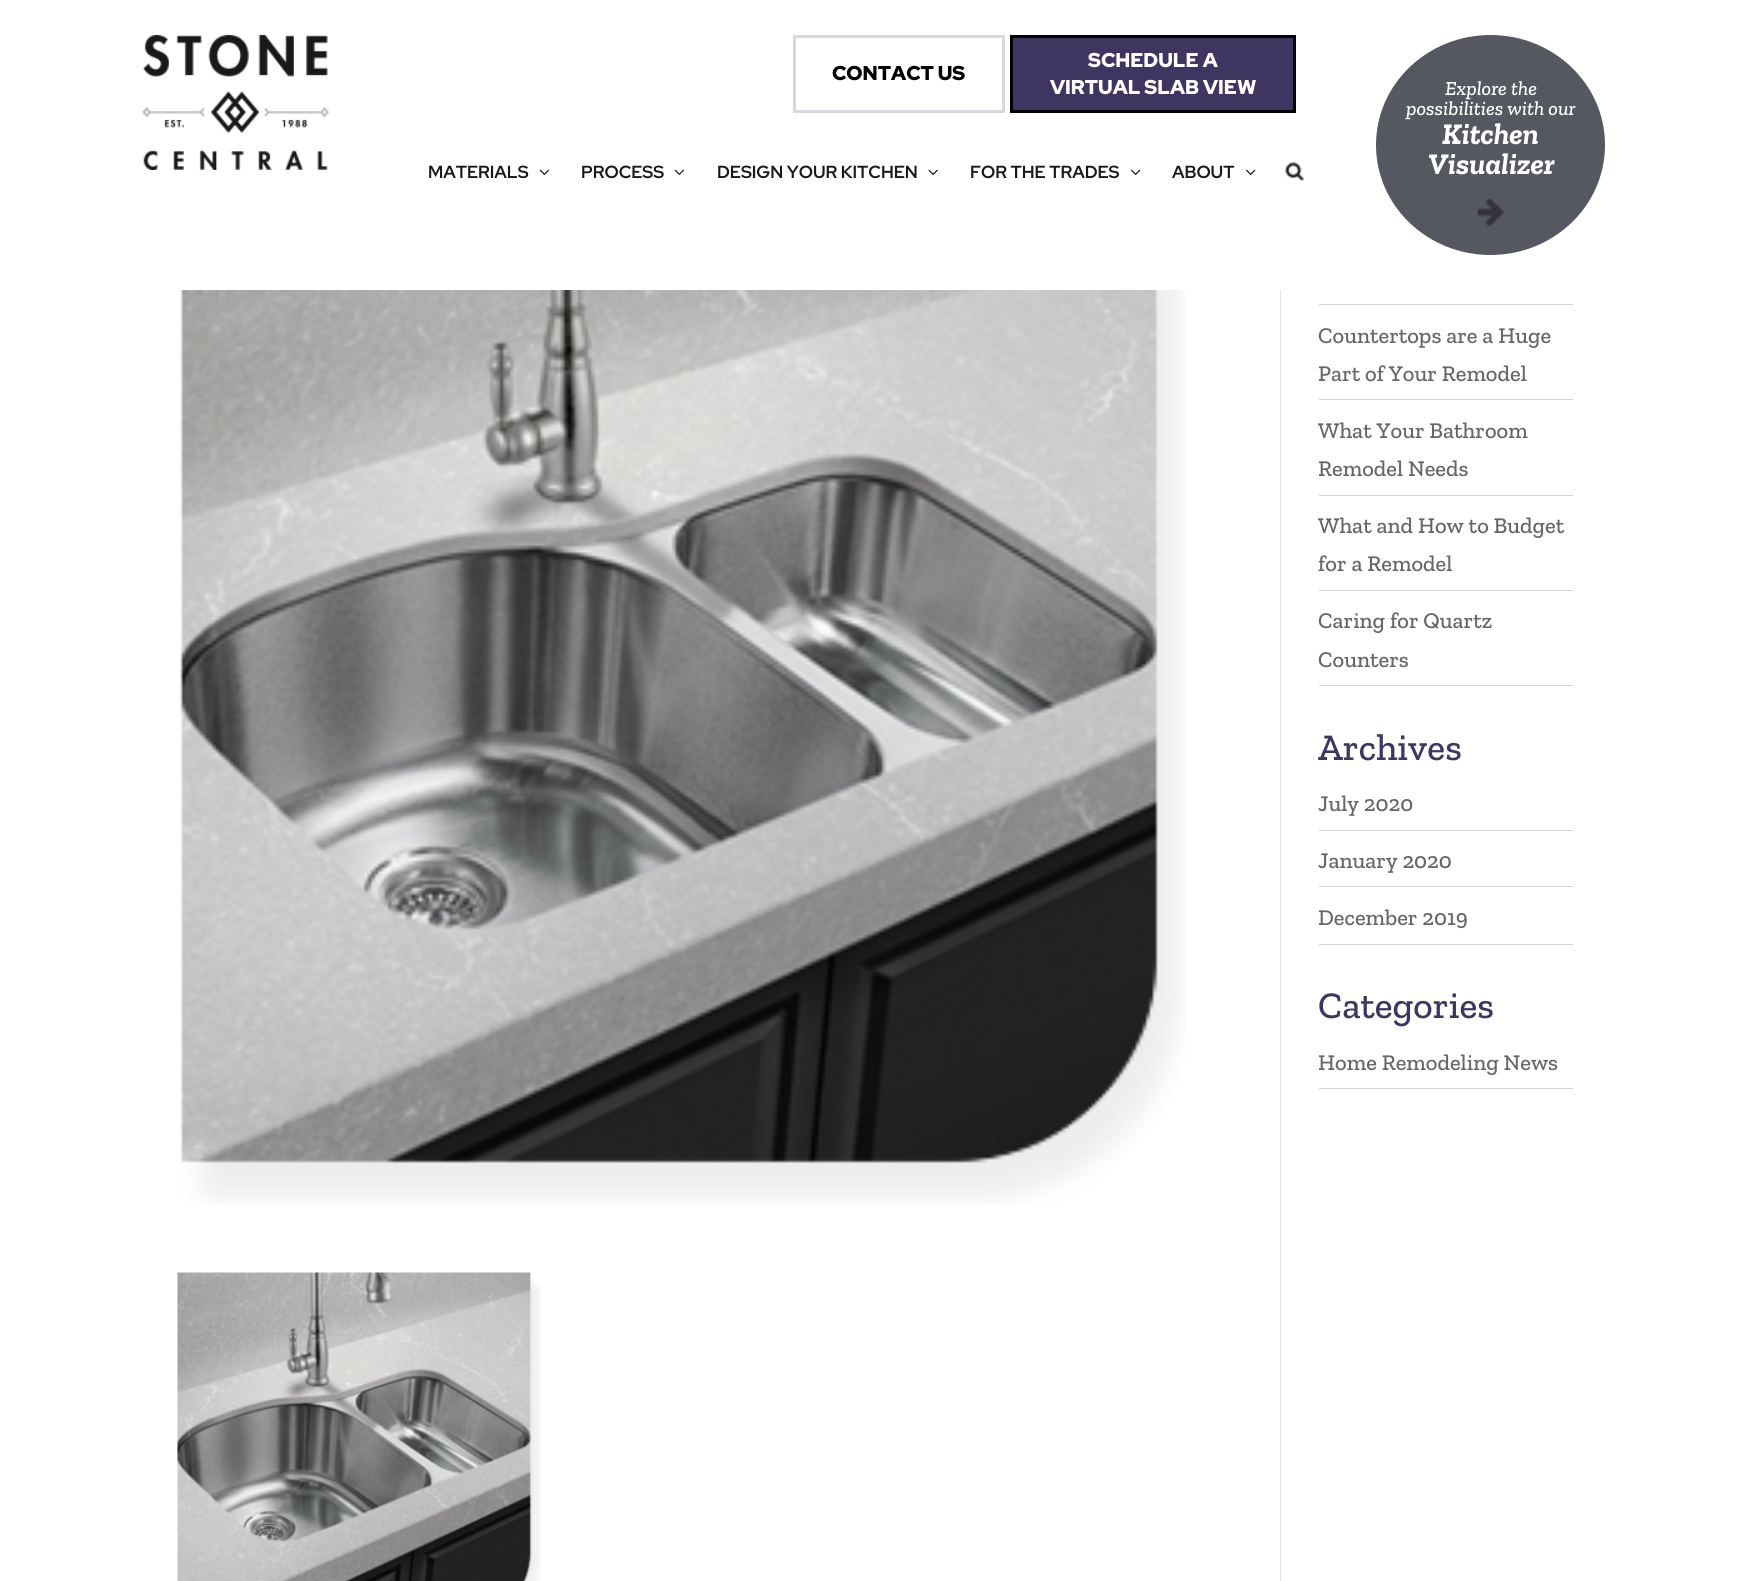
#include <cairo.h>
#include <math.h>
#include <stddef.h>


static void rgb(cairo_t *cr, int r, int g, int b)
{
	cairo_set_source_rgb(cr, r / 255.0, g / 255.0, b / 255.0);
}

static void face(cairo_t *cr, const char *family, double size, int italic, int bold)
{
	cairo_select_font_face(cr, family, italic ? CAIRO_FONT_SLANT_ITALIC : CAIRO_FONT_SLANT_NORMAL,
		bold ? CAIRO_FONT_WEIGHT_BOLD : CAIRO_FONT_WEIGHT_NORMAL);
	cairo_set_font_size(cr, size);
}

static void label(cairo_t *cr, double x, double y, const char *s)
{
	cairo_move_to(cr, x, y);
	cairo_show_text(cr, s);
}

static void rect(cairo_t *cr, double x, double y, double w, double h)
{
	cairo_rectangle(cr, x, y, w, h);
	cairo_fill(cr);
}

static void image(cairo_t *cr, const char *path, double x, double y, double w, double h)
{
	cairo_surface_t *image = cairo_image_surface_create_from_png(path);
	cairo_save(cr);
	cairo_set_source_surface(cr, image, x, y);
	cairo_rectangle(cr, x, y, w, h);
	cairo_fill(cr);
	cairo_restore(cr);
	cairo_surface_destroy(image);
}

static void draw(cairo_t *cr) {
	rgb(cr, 255, 255, 255);
	cairo_paint(cr);
	image(cr, "image0.png", 142, 34, 187, 136);
	cairo_rectangle(cr, 794.5, 36.5, 209, 75);
	rgb(cr, 215, 215, 225);
	cairo_set_line_width(cr, 3);
	cairo_stroke(cr);
	face(cr, "Red Hat Display Black", 20, 0, 0);
	rgb(cr, 0, 0, 0);
	label(cr, 832, 80, "CONTACT US");
	rgb(cr, 62, 53, 96);
	cairo_rectangle(cr, 1011.5, 36.5, 283, 75);
	cairo_fill_preserve(cr);
	rgb(cr, 0, 0, 0);
	cairo_stroke(cr);
	rgb(cr, 255, 255, 255);
	label(cr, 1088, 67, "SCHEDULE A");
	label(cr, 1050, 94, "VIRTUAL SLAB VIEW");
	face(cr, "Red Hat Display", 17.5, 0, 1);
	rgb(cr, 26, 25, 26);
	label(cr, 428, 178, "MATERIALS");
	image(cr, "image1.png", 539, 169, 10, 6);
	label(cr, 581, 178, "PROCESS");
	image(cr, "image1.png", 674, 169, 10, 6);
	label(cr, 717, 178, "DESIGN YOUR KITCHEN");
	image(cr, "image2.png", 928, 169, 10, 6);
	label(cr, 970, 178, "FOR THE TRADES");
	image(cr, "image3.png", 1131, 169, 10, 6);
	label(cr, 1172, 178, "ABOUT");
	image(cr, "image3.png", 1246, 169, 10, 6);
	image(cr, "image4.png", 1284, 162, 20, 19);
	rgb(cr, 85, 87, 97);
	cairo_new_path(cr);
	cairo_move_to(cr, 1490.5, 35);
	cairo_curve_to(cr, 1553.5, 35, 1605, 84, 1605, 145);
	cairo_curve_to(cr, 1605, 206, 1553.5, 255, 1490.5, 255);
	cairo_curve_to(cr, 1427.5, 255, 1376, 206, 1376, 145);
	cairo_curve_to(cr, 1376, 84, 1427.5, 35, 1490.5, 35);
	cairo_close_path(cr);
	cairo_fill(cr);
	face(cr, "Zilla Slab Medium", 20, 1, 0);
	rgb(cr, 255, 255, 255);
	label(cr, 1445, 95, "Explore the");
	label(cr, 1406, 115, "possibilities with our");
	face(cr, "Zilla Slab", 30, 1, 1);
	label(cr, 1442, 144, "Kitchen");
	label(cr, 1428, 174, "Visualizer");
	image(cr, "image5.png", 1477, 198, 27, 29);
	rgb(cr, 226, 226, 226);
	rect(cr, 1280, 290, 1, 1291);
	image(cr, "image6.png", 180, 290, 1005, 914);
	image(cr, "image7.png", 176, 1272, 365, 309);
	rgb(cr, 214, 214, 214);
	rect(cr, 1319, 304, 254, 1);
	rect(cr, 1319, 399, 254, 1);
	face(cr, "Zilla Slab Medium", 22.5, 0, 0);
	rgb(cr, 102, 102, 102);
	label(cr, 1318, 343, "Countertops are a Huge");
	label(cr, 1318, 381, "Part of Your Remodel");
	rgb(cr, 214, 214, 214);
	rect(cr, 1319, 495, 254, 1);
	rgb(cr, 102, 102, 102);
	label(cr, 1318, 438, "What Your Bathroom");
	label(cr, 1318, 476, "Remodel Needs");
	rgb(cr, 214, 214, 214);
	rect(cr, 1319, 590, 254, 1);
	rgb(cr, 102, 102, 102);
	label(cr, 1318, 533, "What and How to Budget");
	label(cr, 1318, 571, "for a Remodel");
	rgb(cr, 214, 214, 214);
	rect(cr, 1319, 685, 254, 1);
	rgb(cr, 102, 102, 102);
	label(cr, 1318, 628, "Caring for Quartz");
	label(cr, 1318, 667, "Counters");
	face(cr, "Zilla Slab Medium", 37.5, 0, 0);
	rgb(cr, 62, 53, 96);
	label(cr, 1318, 760, "Archives");
	rgb(cr, 214, 214, 214);
	rect(cr, 1319, 830, 254, 1);
	face(cr, "Zilla Slab Medium", 22.5, 0, 0);
	rgb(cr, 102, 102, 102);
	label(cr, 1318, 811, "July 2020");
	rgb(cr, 214, 214, 214);
	rect(cr, 1319, 886, 254, 1);
	rgb(cr, 102, 102, 102);
	label(cr, 1318, 868, "January 2020");
	rgb(cr, 214, 214, 214);
	rect(cr, 1319, 944, 254, 1);
	rgb(cr, 102, 102, 102);
	label(cr, 1318, 925, "December 2019");
	face(cr, "Zilla Slab Medium", 37.5, 0, 0);
	rgb(cr, 62, 53, 96);
	label(cr, 1318, 1018, "Categories");
	rgb(cr, 214, 214, 214);
	rect(cr, 1319, 1088, 254, 1);
	face(cr, "Zilla Slab Medium", 22.5, 0, 0);
	rgb(cr, 102, 102, 102);
	label(cr, 1318, 1070, "Home Remodeling News");
}

int main(void) {
	cairo_surface_t *surface = cairo_image_surface_create(CAIRO_FORMAT_RGB24, 1747, 1581);
	cairo_t *cr = cairo_create(surface);
	cairo_font_options_t *options = cairo_font_options_create();
	cairo_font_options_set_hint_metrics(options, CAIRO_HINT_METRICS_OFF);
	cairo_font_options_set_hint_style(options, CAIRO_HINT_STYLE_NONE);
	cairo_set_font_options(cr, options);
	cairo_set_miter_limit(cr, 4);
	draw(cr);
	cairo_surface_write_to_png(surface, "render.png");
	cairo_font_options_destroy(options);
	cairo_destroy(cr);
	cairo_surface_destroy(surface);
	return 0;
}
